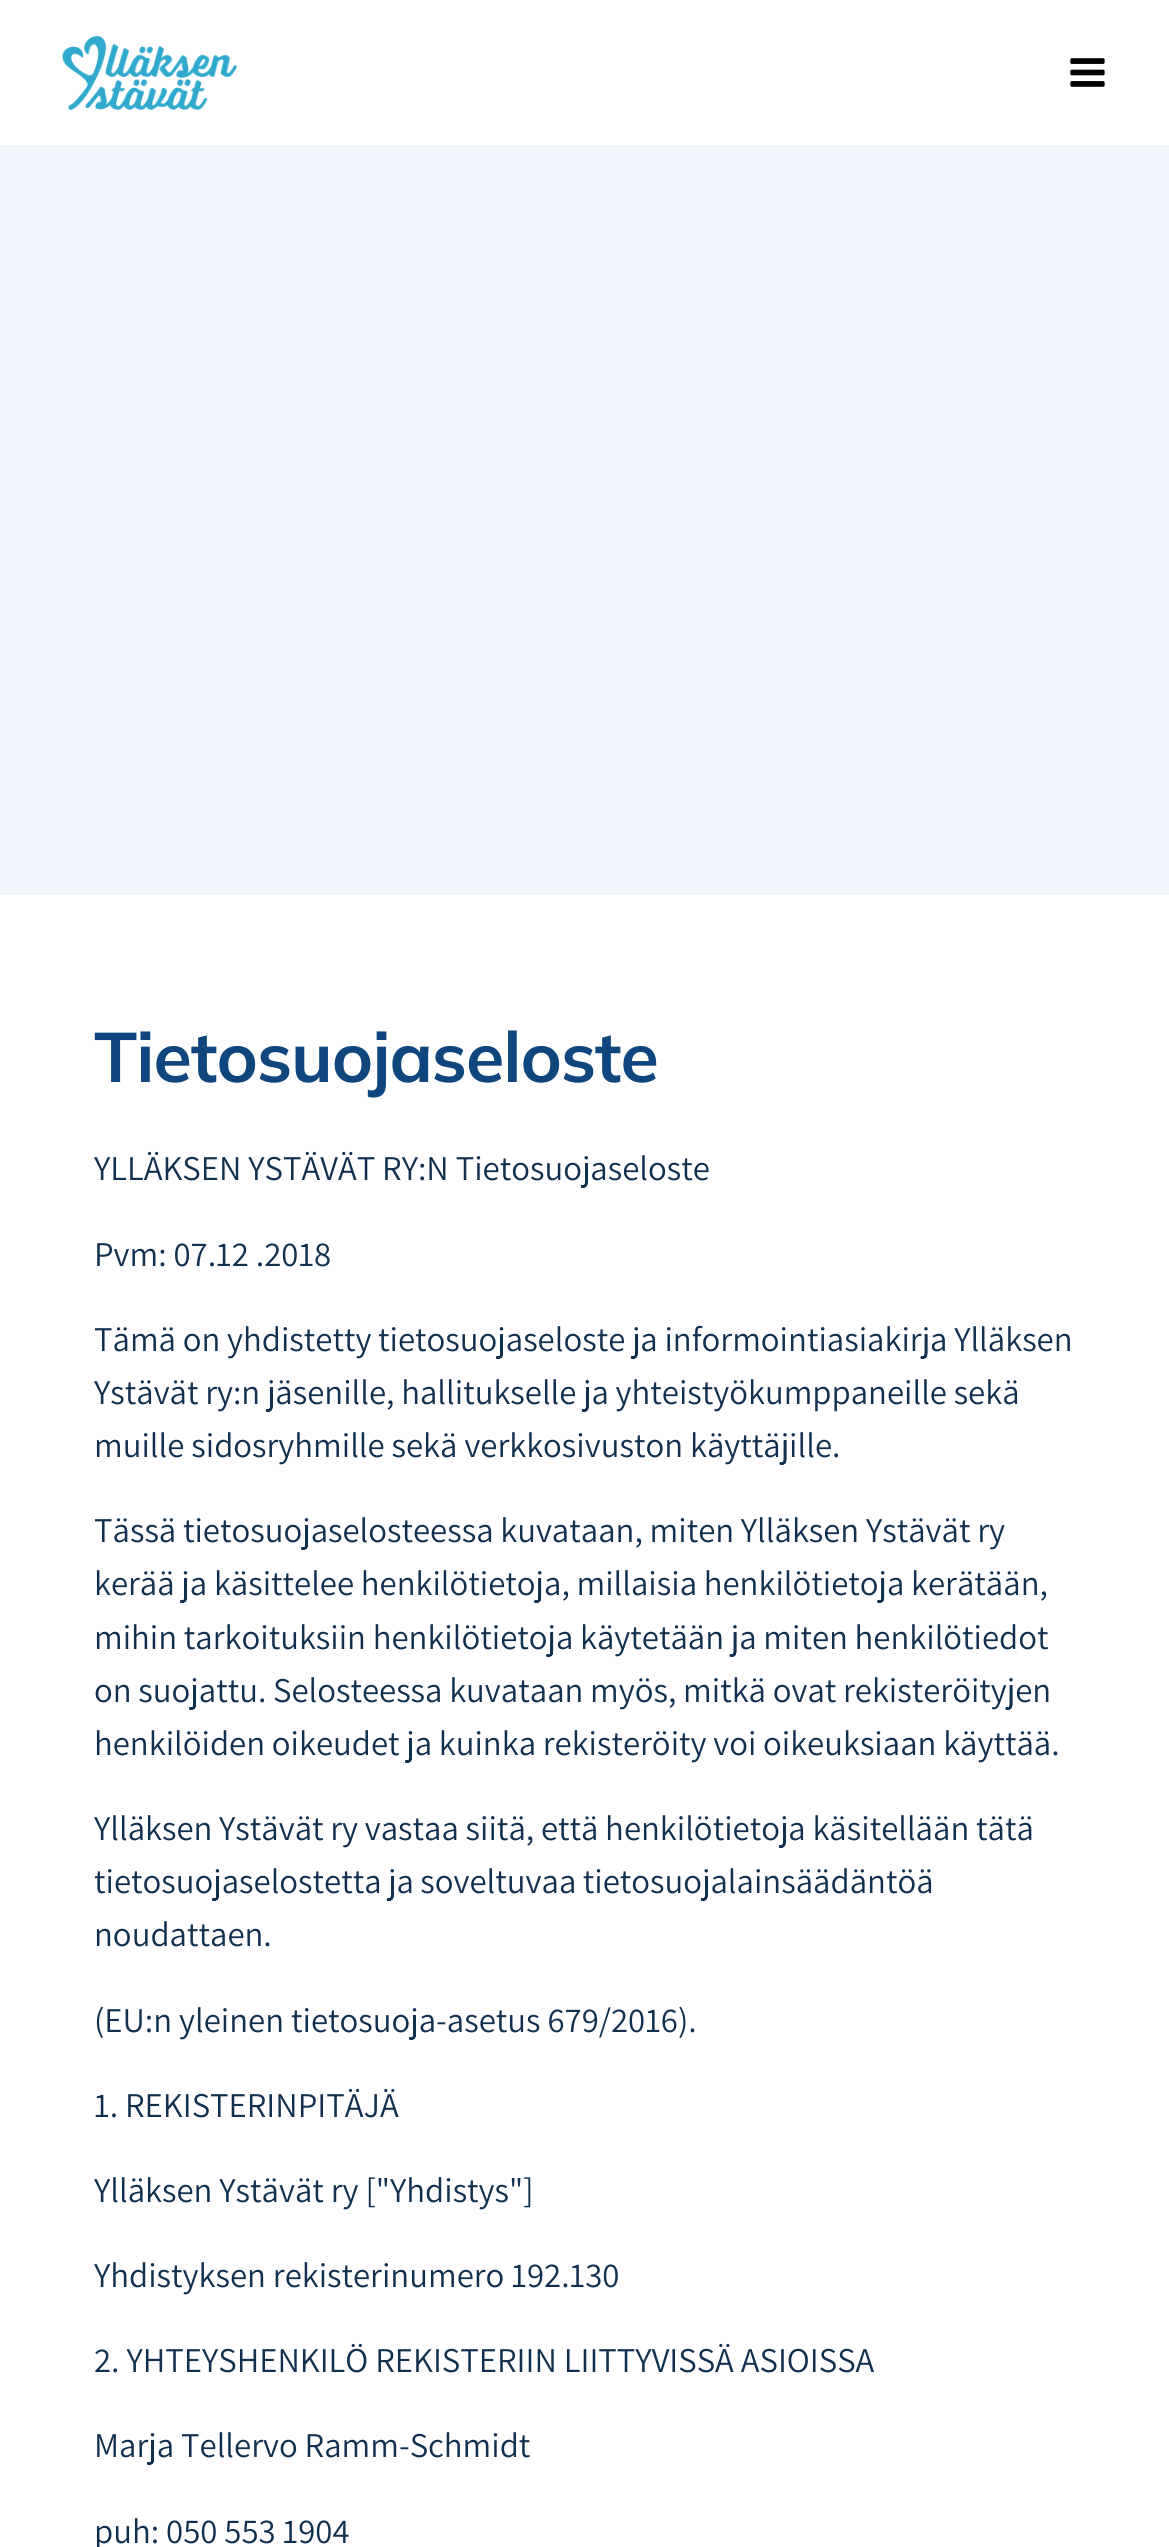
#include <cairo.h>
#include <math.h>
#include <stddef.h>


static void rgb(cairo_t *cr, int r, int g, int b)
{
	cairo_set_source_rgb(cr, r / 255.0, g / 255.0, b / 255.0);
}

static void face(cairo_t *cr, const char *family, double size, int italic, int bold)
{
	cairo_select_font_face(cr, family, italic ? CAIRO_FONT_SLANT_ITALIC : CAIRO_FONT_SLANT_NORMAL,
		bold ? CAIRO_FONT_WEIGHT_BOLD : CAIRO_FONT_WEIGHT_NORMAL);
	cairo_set_font_size(cr, size);
}

static void label(cairo_t *cr, double x, double y, const char *s)
{
	cairo_move_to(cr, x, y);
	cairo_show_text(cr, s);
}

static void tracked(cairo_t *cr, double x, double y, const char *s, double letter, double word)
{
	cairo_move_to(cr, x, y);
	while (*s) {
		char ch[5] = {0};
		int n = 0;
		do ch[n++] = *s++; while ((*s & 0xC0) == 0x80);
		cairo_show_text(cr, ch);
		cairo_rel_move_to(cr, letter + word * (*ch == ' '), 0);
	}
}

static void rect(cairo_t *cr, double x, double y, double w, double h)
{
	cairo_rectangle(cr, x, y, w, h);
	cairo_fill(cr);
}

static void image(cairo_t *cr, const char *path, double x, double y, double w, double h)
{
	cairo_surface_t *image = cairo_image_surface_create_from_png(path);
	cairo_save(cr);
	cairo_set_source_surface(cr, image, x, y);
	cairo_rectangle(cr, x, y, w, h);
	cairo_fill(cr);
	cairo_restore(cr);
	cairo_surface_destroy(image);
}

static void draw(cairo_t *cr) {
	rgb(cr, 255, 255, 255);
	cairo_paint(cr);
	image(cr, "image0.png", 61, 36, 176, 74);
	image(cr, "image1.png", 1070, 58, 35, 29);
	rgb(cr, 240, 245, 251);
	rect(cr, 0, 145, 1169, 750);
	face(cr, "Mulish ExtraLight", 70, 0, 0);
	rgb(cr, 15, 70, 126);
	tracked(cr, 94, 1082, "Tietosuojaseloste", -1, 0);
	face(cr, "Assistant ExtraLight", 34.75, 0, 0);
	rgb(cr, 17, 48, 79);
	label(cr, 94, 1180, "YLLÄKSEN YSTÄVÄT RY:N Tietosuojaseloste");
	label(cr, 94, 1266, "Pvm: 07.12 .2018");
	tracked(cr, 94, 1351, "Tämä on yhdistetty tietosuojaseloste ja informointiasiakirja Ylläksen", 0, -0.25);
	tracked(cr, 94, 1404, "Ystävät ry:n jäsenille, hallitukselle ja yhteistyökumppaneille sekä", 0, -0.25);
	label(cr, 94, 1457, "muille sidosryhmille sekä verkkosivuston käyttäjille.");
	tracked(cr, 94, 1542, "Tässä tietosuojaselosteessa kuvataan, miten Ylläksen Ystävät ry", 0, -0.25);
	tracked(cr, 94, 1595, "kerää ja käsittelee henkilötietoja, millaisia henkilötietoja kerätään,", 0, -0.25);
	tracked(cr, 94, 1649, "mihin tarkoituksiin henkilötietoja käytetään ja miten henkilötiedot", 0, -0.25);
	tracked(cr, 94, 1702, "on suojattu. Selosteessa kuvataan myös, mitkä ovat rekisteröityjen", 0, -0.25);
	tracked(cr, 94, 1755, "henkilöiden oikeudet ja kuinka rekisteröity voi oikeuksiaan käyttää.", 0, -0.25);
	tracked(cr, 94, 1840, "Ylläksen Ystävät ry vastaa siitä, että henkilötietoja käsitellään tätä", 0, -0.25);
	tracked(cr, 94, 1893, "tietosuojaselostetta ja soveltuvaa tietosuojalainsäädäntöä", 0, -0.5);
	label(cr, 94, 1946, "noudattaen.");
	label(cr, 94, 2032, "(EU:n yleinen tietosuoja-asetus 679/2016).");
	label(cr, 94, 2117, "1. REKISTERINPITÄJÄ");
	label(cr, 94, 2202, "Ylläksen Ystävät ry [\"Yhdistys\"]");
	label(cr, 94, 2287, "Yhdistyksen rekisterinumero 192.130");
	label(cr, 94, 2372, "2. YHTEYSHENKILÖ REKISTERIIN LIITTYVISSÄ ASIOISSA");
	label(cr, 94, 2457, "Marja Tellervo Ramm-Schmidt");
	label(cr, 94, 2543, "puh: 050 553 1904");
}

int main(void) {
	cairo_surface_t *surface = cairo_image_surface_create(CAIRO_FORMAT_RGB24, 1169, 2547);
	cairo_t *cr = cairo_create(surface);
	cairo_font_options_t *options = cairo_font_options_create();
	cairo_font_options_set_hint_metrics(options, CAIRO_HINT_METRICS_OFF);
	cairo_font_options_set_hint_style(options, CAIRO_HINT_STYLE_NONE);
	cairo_set_font_options(cr, options);
	cairo_set_miter_limit(cr, 4);
	draw(cr);
	cairo_surface_write_to_png(surface, "render.png");
	cairo_font_options_destroy(options);
	cairo_destroy(cr);
	cairo_surface_destroy(surface);
	return 0;
}
